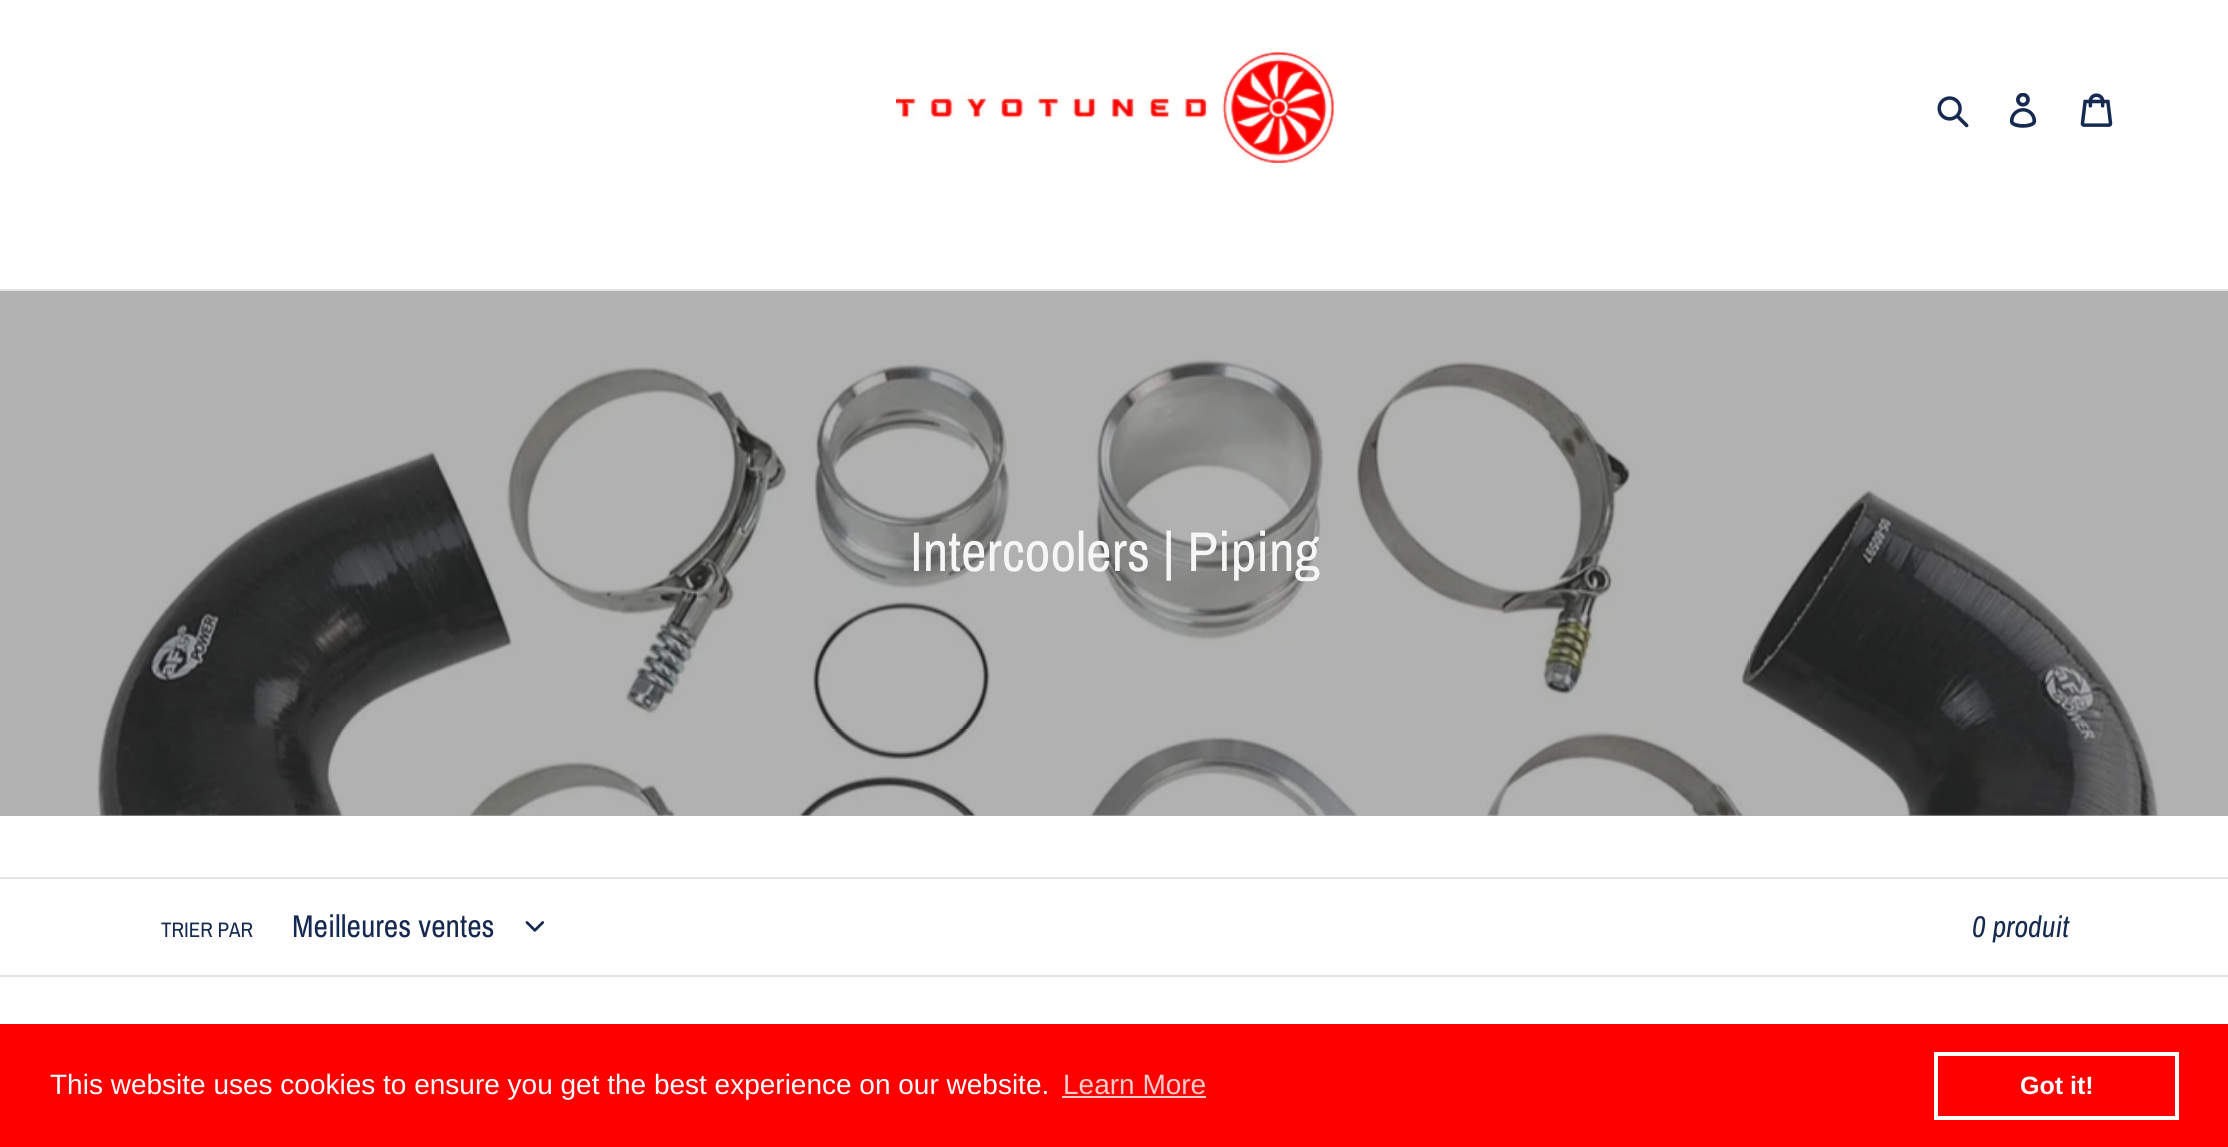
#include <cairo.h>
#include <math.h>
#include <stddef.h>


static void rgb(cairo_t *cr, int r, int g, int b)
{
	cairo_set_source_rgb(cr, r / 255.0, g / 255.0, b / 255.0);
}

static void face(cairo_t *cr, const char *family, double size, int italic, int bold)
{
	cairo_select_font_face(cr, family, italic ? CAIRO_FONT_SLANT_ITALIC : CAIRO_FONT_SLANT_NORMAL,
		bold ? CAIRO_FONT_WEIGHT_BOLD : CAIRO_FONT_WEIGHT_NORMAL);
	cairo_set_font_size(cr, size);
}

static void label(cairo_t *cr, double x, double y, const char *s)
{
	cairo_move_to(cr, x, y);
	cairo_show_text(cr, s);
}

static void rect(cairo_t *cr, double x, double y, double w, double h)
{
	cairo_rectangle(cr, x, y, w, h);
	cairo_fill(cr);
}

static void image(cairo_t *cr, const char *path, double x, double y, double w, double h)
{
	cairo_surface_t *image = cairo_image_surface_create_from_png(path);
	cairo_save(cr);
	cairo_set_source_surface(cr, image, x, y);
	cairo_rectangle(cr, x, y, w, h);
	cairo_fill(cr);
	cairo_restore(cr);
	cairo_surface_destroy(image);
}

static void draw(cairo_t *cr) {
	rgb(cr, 255, 255, 255);
	cairo_paint(cr);
	rgb(cr, 177, 177, 177);
	rect(cr, 0, 291, 2228, 525);
	image(cr, "image0.png", 896, 52, 438, 111);
	image(cr, "image1.png", 1937, 96, 32, 32);
	image(cr, "image2.png", 2009, 93, 28, 35);
	image(cr, "image3.png", 2080, 93, 33, 34);
	rgb(cr, 228, 228, 228);
	rect(cr, 0, 289, 2228, 2);
	image(cr, "image4.png", 97, 359, 2062, 457);
	face(cr, "Archivo Narrow", 56, 0, 0);
	rgb(cr, 246, 246, 246);
	label(cr, 910, 571, "Intercoolers | Piping");
	rgb(cr, 228, 228, 228);
	rect(cr, 0, 877, 2228, 2);
	rect(cr, 0, 975, 2228, 2);
	face(cr, "Archivo Narrow", 21, 0, 0);
	rgb(cr, 22, 41, 80);
	label(cr, 161, 937, "TRIER PAR");
	face(cr, "Archivo Narrow", 31.5, 0, 0);
	label(cr, 292, 937, "Meilleures ventes");
	image(cr, "image5.png", 525, 921, 20, 11);
	face(cr, "Archivo Narrow", 30, 1, 0);
	label(cr, 1972, 937, "0 produit");
	rgb(cr, 255, 0, 0);
	rect(cr, 0, 1024, 2228, 123);
	face(cr, "Liberation Sans", 28, 0, 0);
	rgb(cr, 255, 255, 255);
	label(cr, 50, 1094, "This website uses cookies to ensure you get the best experience on our website.");
	rgb(cr, 255, 204, 204);
	label(cr, 1063, 1094, "Learn More");
	rect(cr, 1062, 1096, 144, 2);
	cairo_rectangle(cr, 1936, 1054, 241, 64);
	rgb(cr, 255, 255, 255);
	cairo_set_line_width(cr, 4);
	cairo_stroke(cr);
	face(cr, "Liberation Sans", 25, 0, 1);
	label(cr, 2020, 1094, "Got it!");
}

int main(void) {
	cairo_surface_t *surface = cairo_image_surface_create(CAIRO_FORMAT_RGB24, 2228, 1147);
	cairo_t *cr = cairo_create(surface);
	cairo_font_options_t *options = cairo_font_options_create();
	cairo_font_options_set_hint_metrics(options, CAIRO_HINT_METRICS_OFF);
	cairo_font_options_set_hint_style(options, CAIRO_HINT_STYLE_NONE);
	cairo_set_font_options(cr, options);
	cairo_set_miter_limit(cr, 4);
	draw(cr);
	cairo_surface_write_to_png(surface, "render.png");
	cairo_font_options_destroy(options);
	cairo_destroy(cr);
	cairo_surface_destroy(surface);
	return 0;
}
